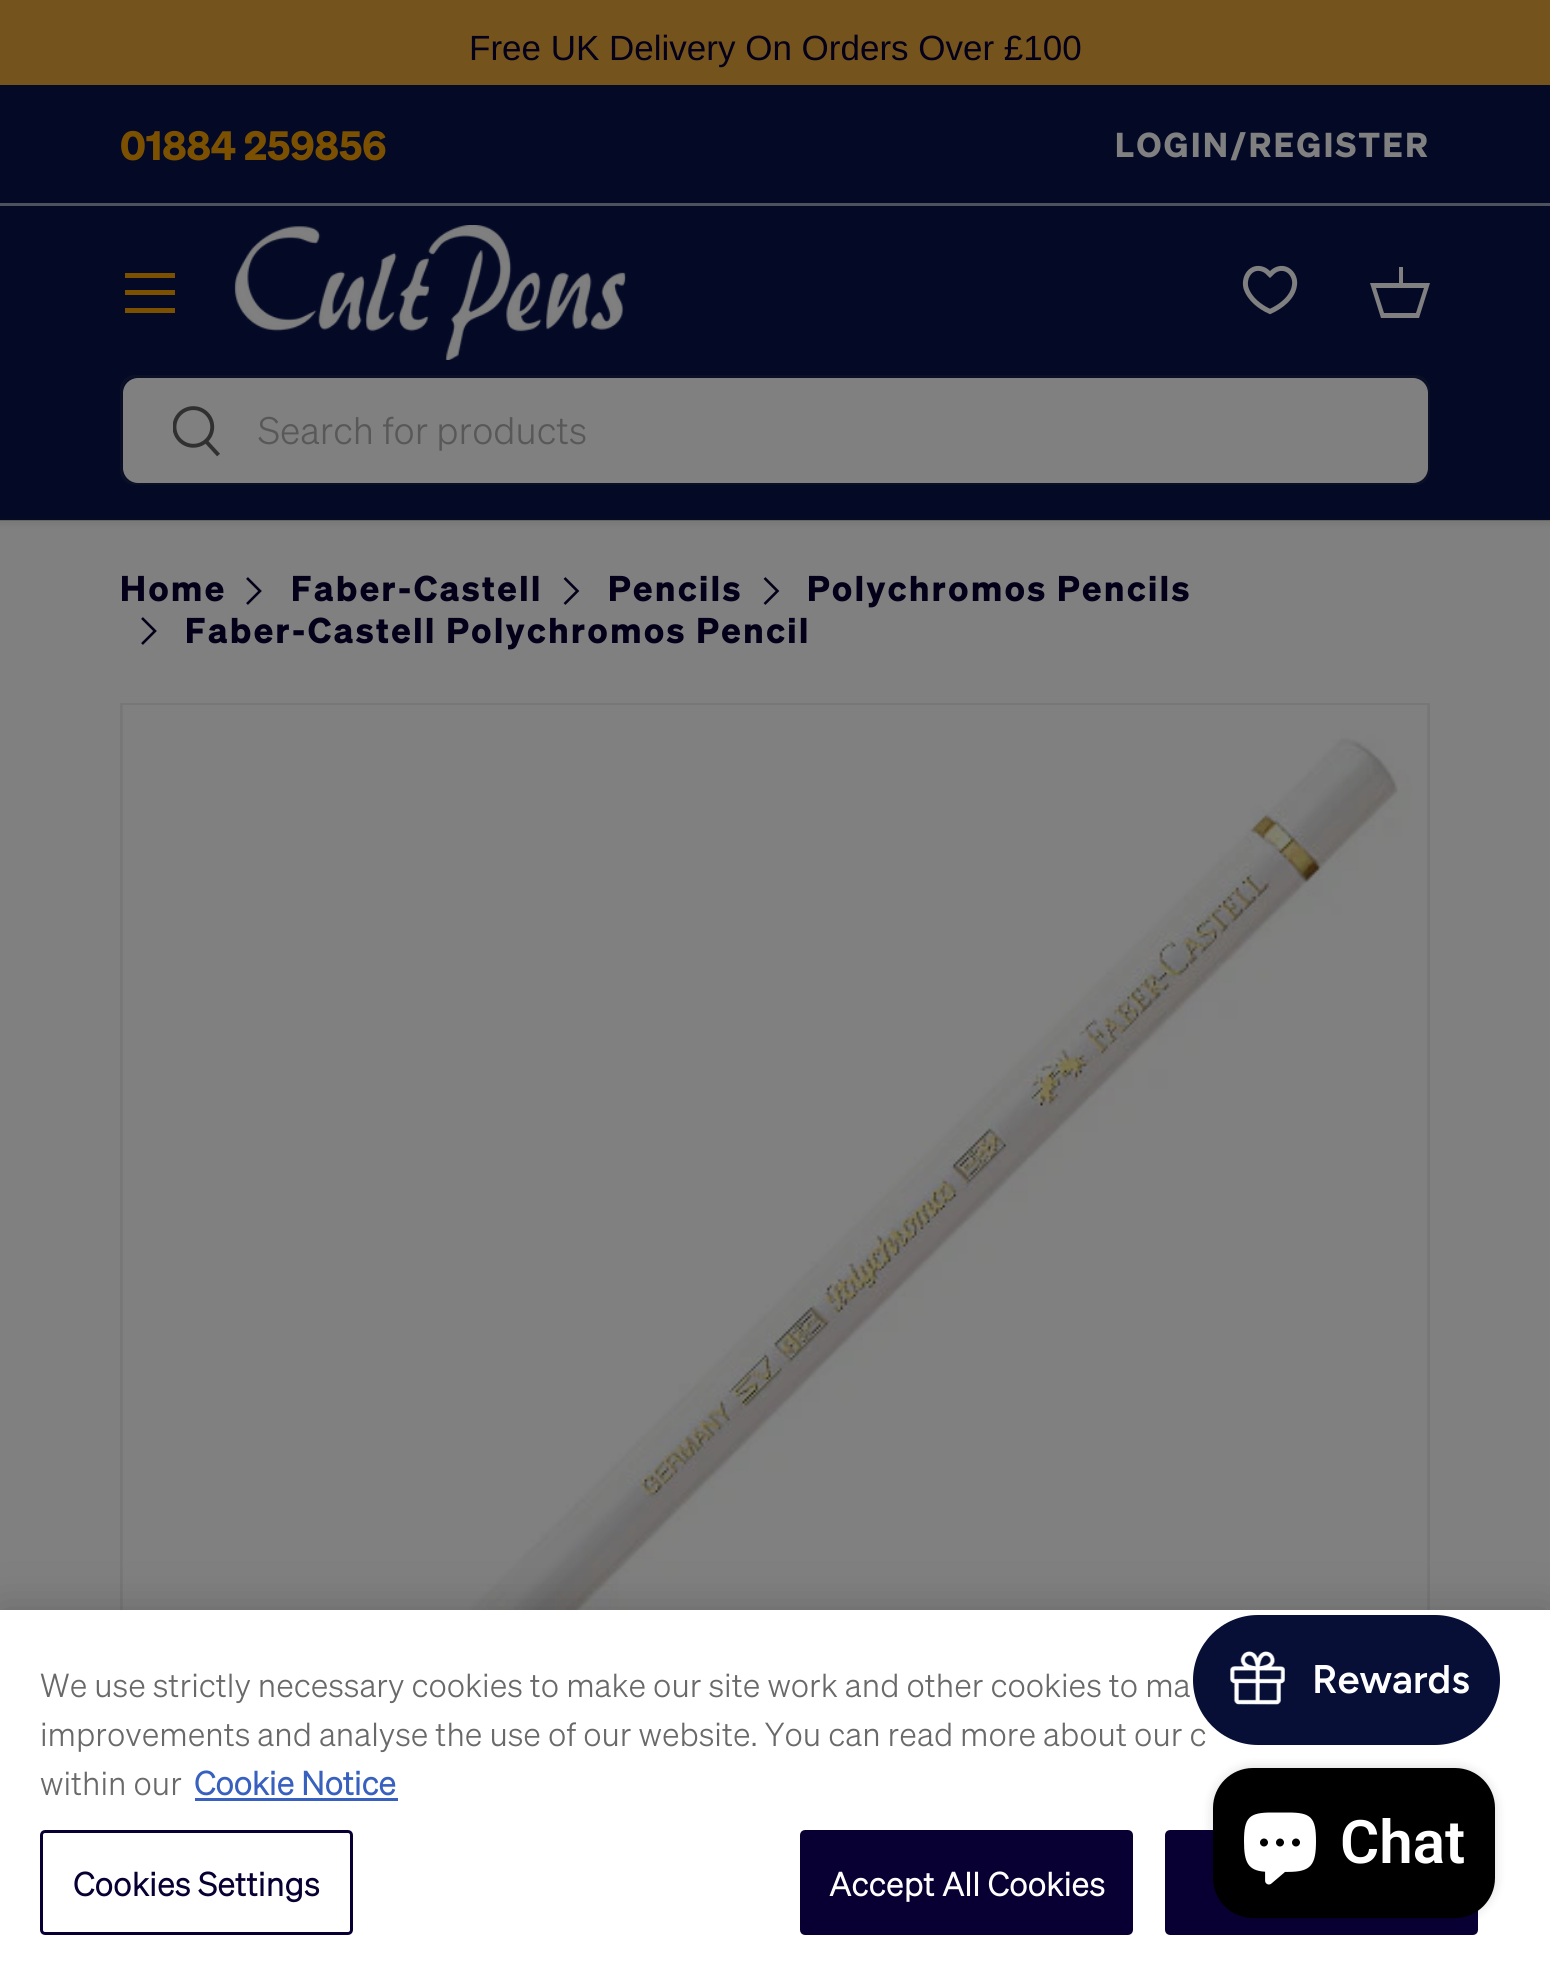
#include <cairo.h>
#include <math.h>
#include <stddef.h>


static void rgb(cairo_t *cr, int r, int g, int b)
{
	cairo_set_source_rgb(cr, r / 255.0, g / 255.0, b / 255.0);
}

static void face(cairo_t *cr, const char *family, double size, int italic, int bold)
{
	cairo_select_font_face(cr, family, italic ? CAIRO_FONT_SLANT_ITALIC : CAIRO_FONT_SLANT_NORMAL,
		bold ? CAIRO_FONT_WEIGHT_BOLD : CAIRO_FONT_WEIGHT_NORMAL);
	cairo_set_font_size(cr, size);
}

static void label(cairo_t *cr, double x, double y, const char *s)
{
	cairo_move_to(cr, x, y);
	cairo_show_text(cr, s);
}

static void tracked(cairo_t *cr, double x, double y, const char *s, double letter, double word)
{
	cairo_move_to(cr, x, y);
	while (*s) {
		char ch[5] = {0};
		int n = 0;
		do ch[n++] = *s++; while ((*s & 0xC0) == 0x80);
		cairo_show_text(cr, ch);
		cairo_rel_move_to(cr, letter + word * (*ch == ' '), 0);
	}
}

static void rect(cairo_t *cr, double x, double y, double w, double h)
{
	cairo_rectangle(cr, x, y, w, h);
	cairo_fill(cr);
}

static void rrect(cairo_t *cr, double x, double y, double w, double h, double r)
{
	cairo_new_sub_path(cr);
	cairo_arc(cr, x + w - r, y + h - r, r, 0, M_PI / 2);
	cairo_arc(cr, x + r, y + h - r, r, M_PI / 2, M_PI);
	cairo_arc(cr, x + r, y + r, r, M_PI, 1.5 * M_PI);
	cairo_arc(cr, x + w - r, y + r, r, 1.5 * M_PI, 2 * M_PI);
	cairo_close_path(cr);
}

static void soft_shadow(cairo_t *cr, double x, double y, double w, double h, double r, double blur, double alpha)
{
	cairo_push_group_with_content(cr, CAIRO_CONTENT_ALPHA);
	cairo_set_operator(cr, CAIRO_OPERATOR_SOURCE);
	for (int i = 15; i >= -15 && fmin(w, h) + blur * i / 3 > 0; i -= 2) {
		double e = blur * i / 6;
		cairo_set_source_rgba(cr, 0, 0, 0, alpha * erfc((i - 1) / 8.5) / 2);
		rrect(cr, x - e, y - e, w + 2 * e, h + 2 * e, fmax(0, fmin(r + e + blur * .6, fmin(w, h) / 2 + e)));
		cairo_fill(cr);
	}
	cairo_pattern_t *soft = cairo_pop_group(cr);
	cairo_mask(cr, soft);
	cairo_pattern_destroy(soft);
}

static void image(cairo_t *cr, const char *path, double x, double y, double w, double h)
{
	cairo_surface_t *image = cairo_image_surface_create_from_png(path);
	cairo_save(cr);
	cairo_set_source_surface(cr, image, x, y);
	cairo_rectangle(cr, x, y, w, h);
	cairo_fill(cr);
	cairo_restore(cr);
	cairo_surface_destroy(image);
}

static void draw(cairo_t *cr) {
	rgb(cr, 128, 128, 128);
	cairo_paint(cr);
	rgb(cr, 117, 83, 29);
	rect(cr, 0, 0, 1550, 85);
	face(cr, "Liberation Sans", 35, 0, 0);
	rgb(cr, 4, 0, 26);
	label(cr, 469, 60, "Free UK Delivery On Orders Over £100");
	rgb(cr, 0, 0, 0);
	soft_shadow(cr, -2, 203, 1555, 320, 0, 4, 0.08);
	rgb(cr, 4, 10, 38);
	rect(cr, 0, 85, 1550, 118);
	rgb(cr, 79, 82, 93);
	rect(cr, 0, 203, 1550, 3);
	face(cr, "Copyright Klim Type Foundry", 40, 0, 1);
	rgb(cr, 123, 81, 1);
	label(cr, 120, 160, "01884 259856");
	face(cr, "Copyright Klim Type Foundry", 33.75, 0, 1);
	rgb(cr, 128, 128, 128);
	tracked(cr, 1115, 157, "LOGIN/REGISTER", 2.5, 0);
	rgb(cr, 4, 10, 38);
	rect(cr, 0, 206, 1550, 314);
	rgb(cr, 123, 81, 1);
	rect(cr, 125, 273, 50, 5);
	rect(cr, 125, 308, 50, 5);
	rect(cr, 125, 290, 50, 5);
	image(cr, "image0.png", 234, 225, 392, 135);
	cairo_new_path(cr);
	cairo_move_to(cr, 1270, 311.5);
	cairo_curve_to(cr, 1260, 307, 1249.5, 299, 1246, 288);
	cairo_curve_to(cr, 1243, 277, 1251.5, 264.5, 1263.5, 269.5);
	cairo_curve_to(cr, 1266, 270.5, 1268, 272.5, 1270, 274.5);
	cairo_curve_to(cr, 1272, 272.5, 1274, 270.5, 1276.5, 269.5);
	cairo_curve_to(cr, 1287, 265, 1296, 275, 1294.5, 285);
	cairo_curve_to(cr, 1293, 297.5, 1281, 306.5, 1270, 311.5);
	cairo_close_path(cr);
	rgb(cr, 128, 128, 128);
	cairo_set_line_width(cr, 5);
	cairo_stroke(cr);
	cairo_new_path(cr);
	cairo_move_to(cr, 1399, 283);
	cairo_line_to(cr, 1399, 267);
	cairo_line_to(cr, 1403, 267);
	cairo_line_to(cr, 1403, 283);
	cairo_line_to(cr, 1430, 283);
	cairo_line_to(cr, 1419, 318);
	cairo_line_to(cr, 1381, 318);
	cairo_line_to(cr, 1370, 283);
	cairo_close_path(cr);
	cairo_move_to(cr, 1376, 288);
	cairo_line_to(cr, 1384, 313);
	cairo_line_to(cr, 1416, 313);
	cairo_line_to(cr, 1424, 288);
	cairo_close_path(cr);
	cairo_fill(cr);
	rrect(cr, 121.5, 376.5, 1307, 107, 13.5);
	rgb(cr, 11, 16, 39);
	cairo_set_line_width(cr, 3);
	cairo_stroke(cr);
	rgb(cr, 128, 128, 128);
	rrect(cr, 123, 378, 1305, 105, 15);
	cairo_fill(cr);
	image(cr, "image1.png", 173, 406, 47, 51);
	face(cr, "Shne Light", 37.5, 0, 0);
	rgb(cr, 88, 88, 88);
	label(cr, 258, 444, "Search for products");
	cairo_set_source_rgba(cr, 0.067, 0.067, 0.067, 0.15);
	rect(cr, 0, 518, 1550, 3);
	face(cr, "Copyright Klim Type Foundry", 35, 0, 1);
	rgb(cr, 4, 0, 26);
	tracked(cr, 120, 601, "Home", 2.5, 0);
	cairo_new_path(cr);
	cairo_move_to(cr, 247, 578);
	cairo_line_to(cr, 260, 591);
	cairo_line_to(cr, 247, 604);
	cairo_set_line_width(cr, 2.6);
	cairo_stroke(cr);
	tracked(cr, 291, 601, "Faber-Castell", 2.5, 0);
	cairo_new_path(cr);
	cairo_move_to(cr, 564.5, 578);
	cairo_line_to(cr, 577.5, 591);
	cairo_line_to(cr, 564.5, 604);
	cairo_stroke(cr);
	tracked(cr, 608, 601, "Pencils", 2.5, 0);
	cairo_new_path(cr);
	cairo_move_to(cr, 764.5, 578);
	cairo_line_to(cr, 777.5, 591);
	cairo_line_to(cr, 764.5, 604);
	cairo_stroke(cr);
	tracked(cr, 807, 601, "Polychromos Pencils", 2.5, 0);
	cairo_new_path(cr);
	cairo_move_to(cr, 142, 618);
	cairo_line_to(cr, 155, 631);
	cairo_line_to(cr, 142, 644);
	cairo_stroke(cr);
	tracked(cr, 185, 643, "Faber-Castell Polychromos Pencil", 2.5, 0);
	cairo_rectangle(cr, 121.5, 704.5, 1307, 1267);
	rgb(cr, 119, 119, 119);
	cairo_set_line_width(cr, 3);
	cairo_stroke(cr);
	image(cr, "image2.png", 122, 705, 1306, 905);
	rgb(cr, 0, 0, 0);
	soft_shadow(cr, 0, 1610, 1550, 360, 0, 22.5, 0.2);
	rgb(cr, 255, 255, 255);
	rect(cr, 0, 1610, 1550, 360);
	face(cr, "Shne Light", 32.5, 0, 0);
	rgb(cr, 105, 105, 105);
	label(cr, 40, 1697, "We use strictly necessary cookies to make our site work and other cookies to ma");
	label(cr, 40, 1746, "improvements and analyse the use of our website. You can read more about our c");
	label(cr, 40, 1795, "within our");
	face(cr, "Shne", 32.5, 0, 1);
	rgb(cr, 56, 96, 190);
	label(cr, 194, 1795, "Cookie Notice");
	rect(cr, 195, 1798, 203, 3);
	rrect(cr, 41.5, 1831.5, 310, 102, 3.5);
	rgb(cr, 8, 0, 51);
	cairo_stroke(cr);
	tracked(cr, 73, 1896, "Cookies Settings", 0.3, 0);
	rrect(cr, 801.5, 1831.5, 330, 102, 3.5);
	cairo_fill_preserve(cr);
	cairo_stroke(cr);
	rgb(cr, 255, 255, 255);
	tracked(cr, 829, 1896, "Accept All Cookies", 0.3, 0);
	rgb(cr, 8, 0, 51);
	rrect(cr, 1166.5, 1831.5, 310, 102, 3.5);
	cairo_fill_preserve(cr);
	cairo_stroke(cr);
	rgb(cr, 7, 15, 54);
	rrect(cr, 1193, 1615, 307, 130, 65);
	cairo_fill(cr);
	image(cr, "image3.png", 1230, 1651, 55, 54);
	face(cr, "Figtree SemiBold", 40, 0, 0);
	rgb(cr, 255, 255, 255);
	label(cr, 1312, 1693, "Rewards");
	rgb(cr, 0, 0, 0);
	soft_shadow(cr, 1213, 1768, 282, 150, 40, 6, 0.15);
	rgb(cr, 0, 0, 0);
	rrect(cr, 1213, 1768, 282, 150, 40);
	cairo_fill(cr);
	image(cr, "image4.png", 1244, 1812, 72, 73);
	face(cr, "Roboto SemiBold", 60, 0, 0);
	rgb(cr, 255, 255, 255);
	label(cr, 1340, 1863, "Chat");
}

int main(void) {
	cairo_surface_t *surface = cairo_image_surface_create(CAIRO_FORMAT_RGB24, 1550, 1970);
	cairo_t *cr = cairo_create(surface);
	cairo_font_options_t *options = cairo_font_options_create();
	cairo_font_options_set_hint_metrics(options, CAIRO_HINT_METRICS_OFF);
	cairo_font_options_set_hint_style(options, CAIRO_HINT_STYLE_NONE);
	cairo_set_font_options(cr, options);
	cairo_set_miter_limit(cr, 4);
	draw(cr);
	cairo_surface_write_to_png(surface, "render.png");
	cairo_font_options_destroy(options);
	cairo_destroy(cr);
	cairo_surface_destroy(surface);
	return 0;
}
